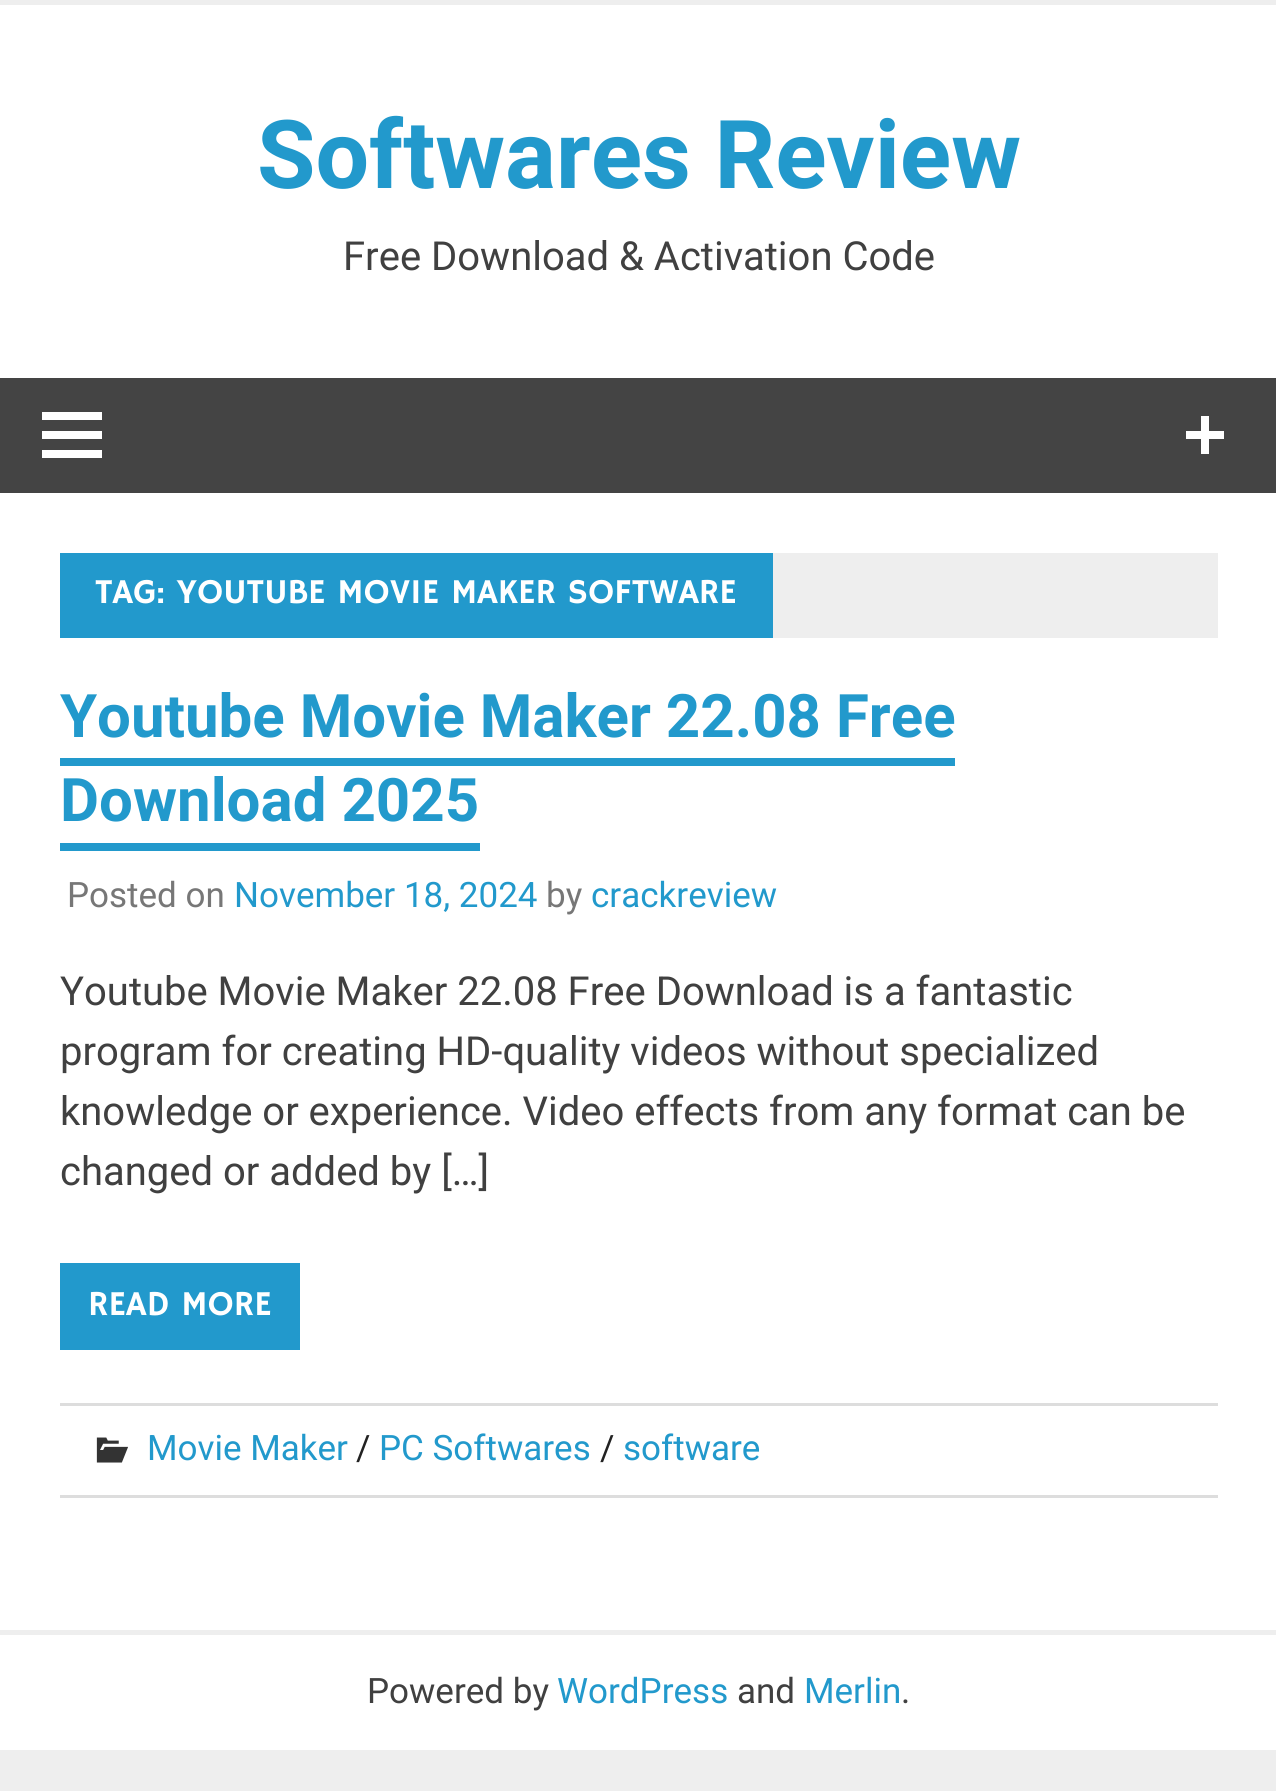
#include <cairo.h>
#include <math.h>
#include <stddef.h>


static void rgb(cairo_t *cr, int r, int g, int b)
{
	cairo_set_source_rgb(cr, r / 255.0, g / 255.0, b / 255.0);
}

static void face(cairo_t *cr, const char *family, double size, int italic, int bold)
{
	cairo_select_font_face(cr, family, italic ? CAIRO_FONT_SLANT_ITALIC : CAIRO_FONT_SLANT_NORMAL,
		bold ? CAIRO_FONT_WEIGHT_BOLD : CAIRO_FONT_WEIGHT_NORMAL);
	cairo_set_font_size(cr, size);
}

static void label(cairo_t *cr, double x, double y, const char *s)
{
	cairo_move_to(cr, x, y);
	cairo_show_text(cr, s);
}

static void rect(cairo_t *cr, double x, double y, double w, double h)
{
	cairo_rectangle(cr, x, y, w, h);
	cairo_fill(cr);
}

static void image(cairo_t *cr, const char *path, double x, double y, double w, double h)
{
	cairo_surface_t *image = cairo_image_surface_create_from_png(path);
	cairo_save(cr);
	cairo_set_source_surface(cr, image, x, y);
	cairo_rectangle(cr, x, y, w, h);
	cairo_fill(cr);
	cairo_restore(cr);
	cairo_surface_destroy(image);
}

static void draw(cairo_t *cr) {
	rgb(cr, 238, 238, 238);
	cairo_paint(cr);
	rgb(cr, 255, 255, 255);
	rect(cr, 0, 5, 1276, 1745);
	face(cr, "Roboto", 95, 0, 1);
	rgb(cr, 34, 153, 204);
	label(cr, 257, 188, "Softwares Review");
	face(cr, "Roboto", 40, 0, 0);
	rgb(cr, 64, 64, 64);
	label(cr, 343, 270, "Free Download & Activation Code");
	rgb(cr, 68, 68, 68);
	rect(cr, 0, 378, 1276, 115);
	rgb(cr, 255, 255, 255);
	cairo_new_path(cr);
	cairo_move_to(cr, 1224, 431);
	cairo_line_to(cr, 1224, 439);
	cairo_line_to(cr, 1209, 439);
	cairo_line_to(cr, 1209, 454);
	cairo_line_to(cr, 1201, 454);
	cairo_line_to(cr, 1201, 439);
	cairo_line_to(cr, 1186, 439);
	cairo_line_to(cr, 1186, 431);
	cairo_line_to(cr, 1201, 431);
	cairo_line_to(cr, 1201, 416);
	cairo_line_to(cr, 1209, 416);
	cairo_line_to(cr, 1209, 431);
	cairo_close_path(cr);
	cairo_fill(cr);
	cairo_new_path(cr);
	cairo_move_to(cr, 42, 458);
	cairo_line_to(cr, 42, 450);
	cairo_line_to(cr, 102, 450);
	cairo_line_to(cr, 102, 458);
	cairo_close_path(cr);
	cairo_move_to(cr, 42, 412);
	cairo_line_to(cr, 102, 412);
	cairo_line_to(cr, 102, 420);
	cairo_line_to(cr, 42, 420);
	cairo_close_path(cr);
	cairo_move_to(cr, 42, 439);
	cairo_line_to(cr, 42, 431);
	cairo_line_to(cr, 102, 431);
	cairo_line_to(cr, 102, 439);
	cairo_close_path(cr);
	cairo_fill(cr);
	rgb(cr, 238, 238, 238);
	rect(cr, 773, 553, 445, 85);
	rgb(cr, 34, 153, 204);
	rect(cr, 60, 553, 713, 85);
	face(cr, "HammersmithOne", 35, 0, 0);
	rgb(cr, 255, 255, 255);
	label(cr, 95, 603, "TAG: YOUTUBE MOVIE MAKER SOFTWARE");
	face(cr, "Roboto", 60, 0, 1);
	rgb(cr, 34, 153, 204);
	label(cr, 60, 737, "Youtube Movie Maker 22.08 Free");
	label(cr, 60, 821, "Download 2025");
	rect(cr, 60, 758, 895, 8);
	rect(cr, 60, 843, 420, 8);
	face(cr, "Roboto", 35, 0, 0);
	rgb(cr, 119, 119, 119);
	label(cr, 67, 907, "Posted on");
	rgb(cr, 34, 153, 204);
	label(cr, 234, 907, "November 18, 2024");
	rgb(cr, 119, 119, 119);
	label(cr, 546, 907, "by");
	rgb(cr, 34, 153, 204);
	label(cr, 591, 907, "crackreview");
	face(cr, "Roboto", 40, 0, 0);
	rgb(cr, 64, 64, 64);
	label(cr, 60, 1005, "Youtube Movie Maker 22.08 Free Download is a fantastic");
	label(cr, 60, 1065, "program for creating HD-quality videos without specialized");
	label(cr, 60, 1125, "knowledge or experience. Video effects from any format can be");
	label(cr, 60, 1185, "changed or added by […]");
	rgb(cr, 34, 153, 204);
	rect(cr, 60, 1263, 240, 87);
	face(cr, "HammersmithOne", 35, 0, 0);
	rgb(cr, 255, 255, 255);
	label(cr, 88, 1315, "READ MORE");
	rgb(cr, 221, 221, 221);
	rect(cr, 60, 1403, 1158, 3);
	rect(cr, 60, 1495, 1158, 3);
	image(cr, "image0.png", 96, 1437, 32, 26);
	face(cr, "Roboto", 35, 0, 0);
	rgb(cr, 34, 153, 204);
	label(cr, 147, 1460, "Movie Maker");
	rgb(cr, 34, 34, 34);
	label(cr, 356, 1460, "/");
	rgb(cr, 34, 153, 204);
	label(cr, 379, 1460, "PC Softwares");
	rgb(cr, 34, 34, 34);
	label(cr, 600, 1460, "/");
	rgb(cr, 34, 153, 204);
	label(cr, 623, 1460, "software");
	rgb(cr, 238, 238, 238);
	rect(cr, 0, 1630, 1276, 5);
	rgb(cr, 64, 64, 64);
	label(cr, 367, 1703, "Powered by");
	rgb(cr, 34, 153, 204);
	label(cr, 557, 1703, "WordPress");
	rgb(cr, 64, 64, 64);
	label(cr, 737, 1703, "and");
	rgb(cr, 34, 153, 204);
	label(cr, 804, 1703, "Merlin");
	rgb(cr, 64, 64, 64);
	label(cr, 901, 1703, ".");
}

int main(void) {
	cairo_surface_t *surface = cairo_image_surface_create(CAIRO_FORMAT_RGB24, 1276, 1791);
	cairo_t *cr = cairo_create(surface);
	cairo_font_options_t *options = cairo_font_options_create();
	cairo_font_options_set_hint_metrics(options, CAIRO_HINT_METRICS_OFF);
	cairo_font_options_set_hint_style(options, CAIRO_HINT_STYLE_NONE);
	cairo_set_font_options(cr, options);
	cairo_set_miter_limit(cr, 4);
	draw(cr);
	cairo_surface_write_to_png(surface, "render.png");
	cairo_font_options_destroy(options);
	cairo_destroy(cr);
	cairo_surface_destroy(surface);
	return 0;
}
